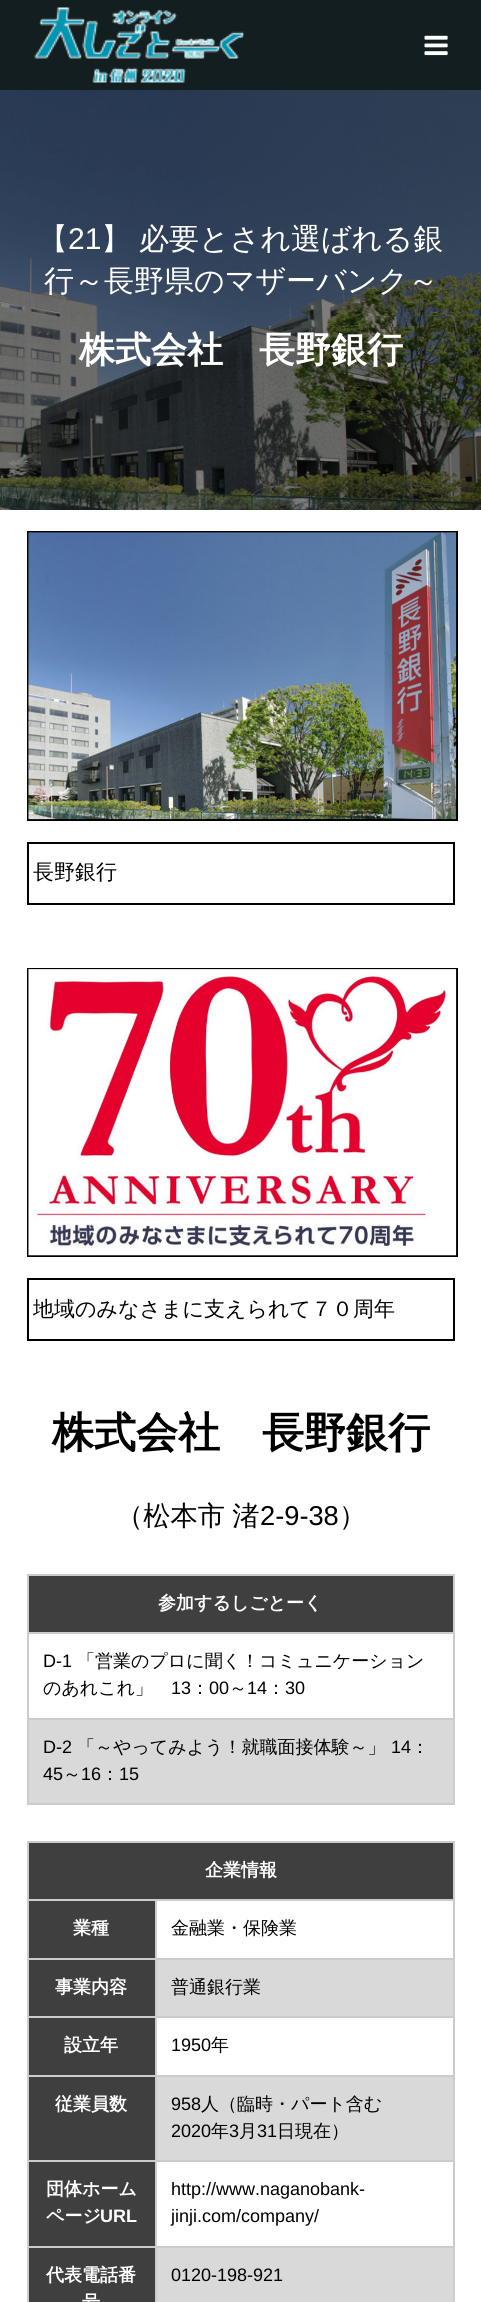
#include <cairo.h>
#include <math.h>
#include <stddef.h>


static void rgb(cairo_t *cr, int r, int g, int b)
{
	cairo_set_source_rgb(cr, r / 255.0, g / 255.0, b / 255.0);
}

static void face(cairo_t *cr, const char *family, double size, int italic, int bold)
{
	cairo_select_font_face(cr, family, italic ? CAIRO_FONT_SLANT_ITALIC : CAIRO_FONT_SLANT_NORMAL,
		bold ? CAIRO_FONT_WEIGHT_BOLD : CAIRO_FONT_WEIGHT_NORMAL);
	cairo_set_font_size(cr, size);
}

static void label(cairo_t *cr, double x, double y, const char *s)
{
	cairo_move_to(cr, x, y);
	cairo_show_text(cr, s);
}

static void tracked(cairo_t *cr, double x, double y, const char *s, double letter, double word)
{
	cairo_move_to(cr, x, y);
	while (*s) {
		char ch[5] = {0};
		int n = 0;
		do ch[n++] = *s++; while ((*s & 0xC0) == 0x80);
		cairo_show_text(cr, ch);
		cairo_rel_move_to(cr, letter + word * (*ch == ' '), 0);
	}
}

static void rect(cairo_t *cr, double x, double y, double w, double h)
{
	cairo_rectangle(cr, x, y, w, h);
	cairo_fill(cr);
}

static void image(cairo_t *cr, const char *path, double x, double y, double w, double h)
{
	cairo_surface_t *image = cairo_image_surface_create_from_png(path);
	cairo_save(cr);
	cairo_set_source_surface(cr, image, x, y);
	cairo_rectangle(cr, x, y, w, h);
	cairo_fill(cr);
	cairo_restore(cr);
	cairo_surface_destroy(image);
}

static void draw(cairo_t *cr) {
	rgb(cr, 255, 255, 255);
	cairo_paint(cr);
	rgb(cr, 18, 30, 31);
	rect(cr, 0, 0, 481, 90);
	image(cr, "image0.png", 34, 7, 210, 76);
	image(cr, "image1.png", 424, 35, 24, 21);
	image(cr, "image2.png", 0, 90, 481, 420);
	face(cr, "WenQuanYi Zen Hei Medium", 30, 0, 0);
	rgb(cr, 255, 255, 255);
	label(cr, 38, 249, "【");
	face(cr, "Liberation Sans", 30, 0, 0);
	label(cr, 68, 249, "21");
	face(cr, "WenQuanYi Zen Hei Medium", 30, 0, 0);
	tracked(cr, 101, 249, "】 必要とされ選ばれる銀", 0, -1);
	label(cr, 44, 291, "行～長野県のマザーバンク～");
	face(cr, "WenQuanYi Zen Hei", 36, 0, 1);
	label(cr, 79, 362, "株式会社　長野銀行");
	cairo_rectangle(cr, 28, 532, 429, 288);
	rgb(cr, 0, 0, 0);
	cairo_stroke(cr);
	image(cr, "image3.png", 28, 532, 429, 288);
	cairo_rectangle(cr, 28, 843, 426, 61);
	cairo_stroke(cr);
	face(cr, "WenQuanYi Zen Hei Medium", 21, 0, 0);
	label(cr, 33, 879, "長野銀行");
	cairo_rectangle(cr, 28, 969, 429, 287);
	cairo_stroke(cr);
	image(cr, "image4.png", 28, 969, 429, 287);
	cairo_rectangle(cr, 28, 1279, 426, 61);
	cairo_stroke(cr);
	label(cr, 33, 1316, "地域のみなさまに支えられて７０周年");
	face(cr, "WenQuanYi Zen Hei", 42, 0, 1);
	label(cr, 52, 1447, "株式会社　長野銀行");
	face(cr, "WenQuanYi Zen Hei Medium", 27.25, 0, 0);
	tracked(cr, 116, 1525, "（松本市 渚", 0, -1);
	face(cr, "Liberation Sans", 27.25, 0, 0);
	label(cr, 260, 1525, "2-9-38");
	face(cr, "WenQuanYi Zen Hei Medium", 27.25, 0, 0);
	label(cr, 339, 1525, "）");
	rgb(cr, 204, 204, 204);
	rect(cr, 27, 1574, 428, 2);
	rect(cr, 453, 1574, 2, 231);
	rect(cr, 27, 1803, 428, 2);
	rect(cr, 27, 1574, 2, 231);
	rgb(cr, 63, 63, 63);
	rect(cr, 29, 1576, 424, 56);
	face(cr, "WenQuanYi Zen Hei", 18, 0, 1);
	rgb(cr, 255, 255, 255);
	label(cr, 158, 1609, "参加するしごとーく");
	rgb(cr, 204, 204, 204);
	rect(cr, 27, 1632, 428, 2);
	face(cr, "Liberation Sans", 18, 0, 0);
	rgb(cr, 0, 0, 0);
	label(cr, 43, 1667, "D-1");
	face(cr, "WenQuanYi Zen Hei Medium", 18, 0, 0);
	label(cr, 77, 1667, "「営業のプロに聞く！コミュニケーション");
	label(cr, 43, 1694, "のあれこれ」");
	face(cr, "Liberation Sans", 18, 0, 0);
	label(cr, 171, 1694, "13");
	face(cr, "WenQuanYi Zen Hei Medium", 18, 0, 0);
	label(cr, 191, 1694, "：");
	face(cr, "Liberation Sans", 18, 0, 0);
	label(cr, 209, 1694, "00");
	face(cr, "WenQuanYi Zen Hei Medium", 18, 0, 0);
	label(cr, 229, 1694, "～");
	face(cr, "Liberation Sans", 18, 0, 0);
	label(cr, 247, 1694, "14");
	face(cr, "WenQuanYi Zen Hei Medium", 18, 0, 0);
	label(cr, 267, 1694, "：");
	face(cr, "Liberation Sans", 18, 0, 0);
	label(cr, 285, 1694, "30");
	rgb(cr, 217, 217, 217);
	rect(cr, 29, 1720, 424, 83);
	rgb(cr, 204, 204, 204);
	rect(cr, 27, 1718, 428, 2);
	rgb(cr, 0, 0, 0);
	label(cr, 43, 1753, "D-2");
	face(cr, "WenQuanYi Zen Hei Medium", 18, 0, 0);
	label(cr, 77, 1753, "「～やってみよう！就職面接体験～」");
	face(cr, "Liberation Sans", 18, 0, 0);
	label(cr, 391, 1753, "14");
	face(cr, "WenQuanYi Zen Hei Medium", 18, 0, 0);
	label(cr, 411, 1753, "：");
	face(cr, "Liberation Sans", 18, 0, 0);
	label(cr, 43, 1780, "45");
	face(cr, "WenQuanYi Zen Hei Medium", 18, 0, 0);
	label(cr, 63, 1780, "～");
	face(cr, "Liberation Sans", 18, 0, 0);
	label(cr, 81, 1780, "16");
	face(cr, "WenQuanYi Zen Hei Medium", 18, 0, 0);
	label(cr, 101, 1780, "：");
	face(cr, "Liberation Sans", 18, 0, 0);
	label(cr, 119, 1780, "15");
	rgb(cr, 204, 204, 204);
	rect(cr, 27, 1841, 428, 2);
	rect(cr, 453, 1841, 2, 461);
	rect(cr, 27, 1841, 2, 461);
	rgb(cr, 63, 63, 63);
	rect(cr, 29, 1843, 424, 56);
	face(cr, "WenQuanYi Zen Hei", 18, 0, 1);
	rgb(cr, 255, 255, 255);
	label(cr, 205, 1876, "企業情報");
	rgb(cr, 63, 63, 63);
	rect(cr, 29, 1901, 126, 57);
	rgb(cr, 204, 204, 204);
	rect(cr, 155, 1899, 300, 2);
	rect(cr, 155, 1958, 300, 2);
	rect(cr, 155, 2016, 300, 2);
	rect(cr, 155, 2075, 300, 2);
	rect(cr, 155, 2160, 300, 2);
	rect(cr, 155, 2246, 300, 2);
	rect(cr, 155, 2246, 2, 56);
	rect(cr, 27, 2246, 129, 2);
	rect(cr, 155, 2160, 2, 87);
	rect(cr, 27, 2160, 129, 2);
	rect(cr, 155, 2075, 2, 87);
	rect(cr, 27, 2075, 129, 2);
	rect(cr, 155, 2016, 2, 60);
	rect(cr, 27, 2016, 129, 2);
	rect(cr, 155, 1958, 2, 60);
	rect(cr, 27, 1958, 129, 2);
	rect(cr, 155, 1899, 2, 60);
	rect(cr, 27, 1899, 129, 2);
	rgb(cr, 255, 255, 255);
	label(cr, 73, 1934, "業種");
	face(cr, "WenQuanYi Zen Hei Medium", 18, 0, 0);
	rgb(cr, 0, 0, 0);
	label(cr, 171, 1934, "金融業・保険業");
	rgb(cr, 217, 217, 217);
	rect(cr, 157, 1960, 296, 56);
	rgb(cr, 63, 63, 63);
	rect(cr, 29, 1960, 126, 56);
	face(cr, "WenQuanYi Zen Hei", 18, 0, 1);
	rgb(cr, 255, 255, 255);
	label(cr, 55, 1993, "事業内容");
	face(cr, "WenQuanYi Zen Hei Medium", 18, 0, 0);
	rgb(cr, 0, 0, 0);
	label(cr, 171, 1993, "普通銀行業");
	rgb(cr, 63, 63, 63);
	rect(cr, 29, 2018, 126, 57);
	face(cr, "WenQuanYi Zen Hei", 18, 0, 1);
	rgb(cr, 255, 255, 255);
	label(cr, 64, 2051, "設立年");
	face(cr, "Liberation Sans", 18, 0, 0);
	rgb(cr, 0, 0, 0);
	label(cr, 171, 2051, "1950");
	face(cr, "WenQuanYi Zen Hei Medium", 18, 0, 0);
	label(cr, 211, 2051, "年");
	rgb(cr, 217, 217, 217);
	rect(cr, 157, 2077, 296, 83);
	rgb(cr, 63, 63, 63);
	rect(cr, 29, 2077, 126, 83);
	face(cr, "WenQuanYi Zen Hei", 18, 0, 1);
	rgb(cr, 255, 255, 255);
	label(cr, 55, 2110, "従業員数");
	face(cr, "Liberation Sans", 18, 0, 0);
	rgb(cr, 0, 0, 0);
	label(cr, 171, 2110, "958");
	face(cr, "WenQuanYi Zen Hei Medium", 18, 0, 0);
	label(cr, 201, 2110, "人（臨時・パート含む");
	face(cr, "Liberation Sans", 18, 0, 0);
	label(cr, 171, 2137, "2020");
	face(cr, "WenQuanYi Zen Hei Medium", 18, 0, 0);
	label(cr, 211, 2137, "年");
	face(cr, "Liberation Sans", 18, 0, 0);
	label(cr, 229, 2137, "3");
	face(cr, "WenQuanYi Zen Hei Medium", 18, 0, 0);
	label(cr, 239, 2137, "月");
	face(cr, "Liberation Sans", 18, 0, 0);
	label(cr, 257, 2137, "31");
	face(cr, "WenQuanYi Zen Hei Medium", 18, 0, 0);
	label(cr, 277, 2137, "日現在）");
	rgb(cr, 63, 63, 63);
	rect(cr, 29, 2162, 126, 84);
	face(cr, "WenQuanYi Zen Hei", 18, 0, 1);
	rgb(cr, 255, 255, 255);
	label(cr, 46, 2195, "団体ホーム");
	label(cr, 46, 2222, "ページ");
	face(cr, "Liberation Sans", 18, 0, 1);
	label(cr, 100, 2222, "URL");
	face(cr, "Liberation Sans", 18, 0, 0);
	rgb(cr, 0, 0, 0);
	label(cr, 171, 2195, "http://www.naganobank-");
	label(cr, 171, 2222, "jinji.com/company/");
	rgb(cr, 217, 217, 217);
	rect(cr, 157, 2248, 296, 54);
	rgb(cr, 63, 63, 63);
	rect(cr, 29, 2248, 126, 54);
	face(cr, "WenQuanYi Zen Hei", 18, 0, 1);
	rgb(cr, 255, 255, 255);
	label(cr, 46, 2281, "代表電話番");
	label(cr, 82, 2308, "号");
	face(cr, "Liberation Sans", 18, 0, 0);
	rgb(cr, 0, 0, 0);
	label(cr, 171, 2281, "0120-198-921");
}

int main(void) {
	cairo_surface_t *surface = cairo_image_surface_create(CAIRO_FORMAT_RGB24, 481, 2302);
	cairo_t *cr = cairo_create(surface);
	cairo_font_options_t *options = cairo_font_options_create();
	cairo_font_options_set_hint_metrics(options, CAIRO_HINT_METRICS_OFF);
	cairo_font_options_set_hint_style(options, CAIRO_HINT_STYLE_NONE);
	cairo_set_font_options(cr, options);
	cairo_set_miter_limit(cr, 4);
	draw(cr);
	cairo_surface_write_to_png(surface, "render.png");
	cairo_font_options_destroy(options);
	cairo_destroy(cr);
	cairo_surface_destroy(surface);
	return 0;
}
